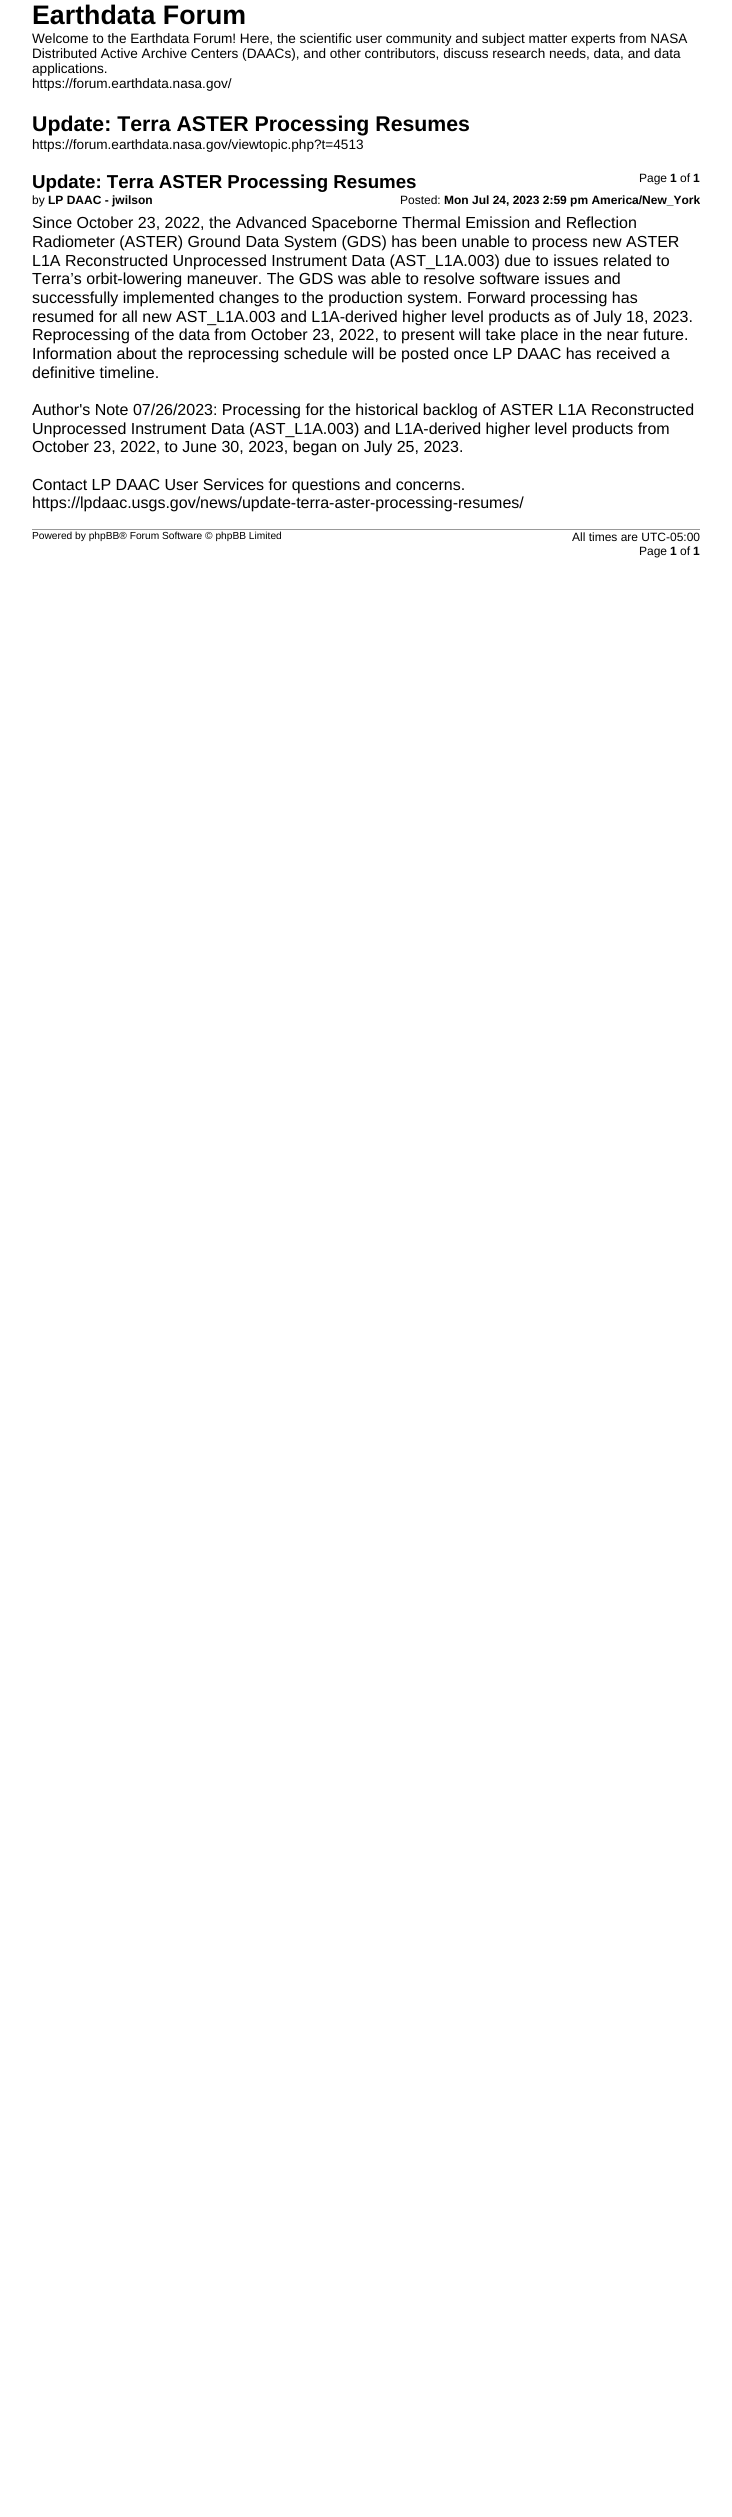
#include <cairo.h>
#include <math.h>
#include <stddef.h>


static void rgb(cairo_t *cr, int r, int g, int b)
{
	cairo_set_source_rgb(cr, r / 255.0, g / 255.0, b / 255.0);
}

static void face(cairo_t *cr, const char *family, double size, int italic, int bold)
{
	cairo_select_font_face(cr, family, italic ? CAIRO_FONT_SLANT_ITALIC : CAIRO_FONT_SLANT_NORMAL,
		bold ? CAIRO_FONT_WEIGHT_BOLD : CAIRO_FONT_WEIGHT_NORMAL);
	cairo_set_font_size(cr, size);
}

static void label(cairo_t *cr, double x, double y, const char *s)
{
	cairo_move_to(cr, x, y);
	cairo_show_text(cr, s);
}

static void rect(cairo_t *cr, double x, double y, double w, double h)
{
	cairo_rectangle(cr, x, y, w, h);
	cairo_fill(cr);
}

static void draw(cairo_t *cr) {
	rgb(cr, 255, 255, 255);
	cairo_paint(cr);
	face(cr, "Liberation Sans", 26.75, 0, 1);
	rgb(cr, 0, 0, 0);
	label(cr, 32, 24, "Earthdata Forum");
	face(cr, "Liberation Sans", 13.6, 0, 0);
	label(cr, 32, 43, "Welcome to the Earthdata Forum! Here, the scientific user community and subject matter experts from NASA");
	label(cr, 32, 58, "Distributed Active Archive Centers (DAACs), and other contributors, discuss research needs, data, and data");
	label(cr, 32, 73, "applications.");
	label(cr, 32, 88, "https://forum.earthdata.nasa.gov/");
	face(cr, "Liberation Sans", 21.3, 0, 1);
	label(cr, 32, 131, "Update: Terra ASTER Processing Resumes");
	face(cr, "Liberation Sans", 13.6, 0, 0);
	label(cr, 32, 149, "https://forum.earthdata.nasa.gov/viewtopic.php?t=4513");
	face(cr, "Liberation Sans", 12, 0, 0);
	label(cr, 639, 182, "Page");
	face(cr, "Liberation Sans", 12, 0, 1);
	label(cr, 670, 182, "1");
	face(cr, "Liberation Sans", 12, 0, 0);
	label(cr, 680, 182, "of");
	face(cr, "Liberation Sans", 12, 0, 1);
	label(cr, 693, 182, "1");
	face(cr, "Liberation Sans", 18.7, 0, 1);
	label(cr, 32, 188, "Update: Terra ASTER Processing Resumes");
	face(cr, "Liberation Sans", 12, 0, 0);
	label(cr, 32, 204, "by");
	face(cr, "Liberation Sans", 12, 0, 1);
	label(cr, 48, 204, "LP DAAC - jwilson");
	face(cr, "Liberation Sans", 12, 0, 0);
	label(cr, 400, 204, "Posted:");
	face(cr, "Liberation Sans", 12, 0, 1);
	label(cr, 444, 204, "Mon Jul 24, 2023 2:59 pm America/New_York");
	face(cr, "Liberation Sans", 16, 0, 0);
	label(cr, 32, 228, "Since October 23, 2022, the Advanced Spaceborne Thermal Emission and Reflection");
	label(cr, 32, 247, "Radiometer (ASTER) Ground Data System (GDS) has been unable to process new ASTER");
	label(cr, 32, 266, "L1A Reconstructed Unprocessed Instrument Data (AST_L1A.003) due to issues related to");
	label(cr, 32, 284, "Terra’s orbit-lowering maneuver. The GDS was able to resolve software issues and");
	label(cr, 32, 303, "successfully implemented changes to the production system. Forward processing has");
	label(cr, 32, 322, "resumed for all new AST_L1A.003 and L1A-derived higher level products as of July 18, 2023.");
	label(cr, 32, 340, "Reprocessing of the data from October 23, 2022, to present will take place in the near future.");
	label(cr, 32, 359, "Information about the reprocessing schedule will be posted once LP DAAC has received a");
	label(cr, 32, 378, "definitive timeline.");
	label(cr, 32, 415, "Author's Note 07/26/2023: Processing for the historical backlog of ASTER L1A Reconstructed");
	label(cr, 32, 434, "Unprocessed Instrument Data (AST_L1A.003) and L1A-derived higher level products from");
	label(cr, 32, 452, "October 23, 2022, to June 30, 2023, began on July 25, 2023.");
	label(cr, 32, 490, "Contact LP DAAC User Services for questions and concerns.");
	label(cr, 32, 508, "https://lpdaac.usgs.gov/news/update-terra-aster-processing-resumes/");
	rgb(cr, 153, 153, 153);
	rect(cr, 32, 529, 668, 1);
	face(cr, "Liberation Sans", 10.2, 0, 0);
	rgb(cr, 0, 0, 0);
	label(cr, 32, 539, "Powered by phpBB® Forum Software © phpBB Limited");
	face(cr, "Liberation Sans", 12, 0, 0);
	label(cr, 572, 541, "All times are UTC-05:00");
	label(cr, 639, 555, "Page");
	face(cr, "Liberation Sans", 12, 0, 1);
	label(cr, 670, 555, "1");
	face(cr, "Liberation Sans", 12, 0, 0);
	label(cr, 680, 555, "of");
	face(cr, "Liberation Sans", 12, 0, 1);
	label(cr, 693, 555, "1");
}

int main(void) {
	cairo_surface_t *surface = cairo_image_surface_create(CAIRO_FORMAT_RGB24, 732, 2517);
	cairo_t *cr = cairo_create(surface);
	cairo_font_options_t *options = cairo_font_options_create();
	cairo_font_options_set_hint_metrics(options, CAIRO_HINT_METRICS_OFF);
	cairo_font_options_set_hint_style(options, CAIRO_HINT_STYLE_NONE);
	cairo_set_font_options(cr, options);
	cairo_set_miter_limit(cr, 4);
	draw(cr);
	cairo_surface_write_to_png(surface, "render.png");
	cairo_font_options_destroy(options);
	cairo_destroy(cr);
	cairo_surface_destroy(surface);
	return 0;
}
